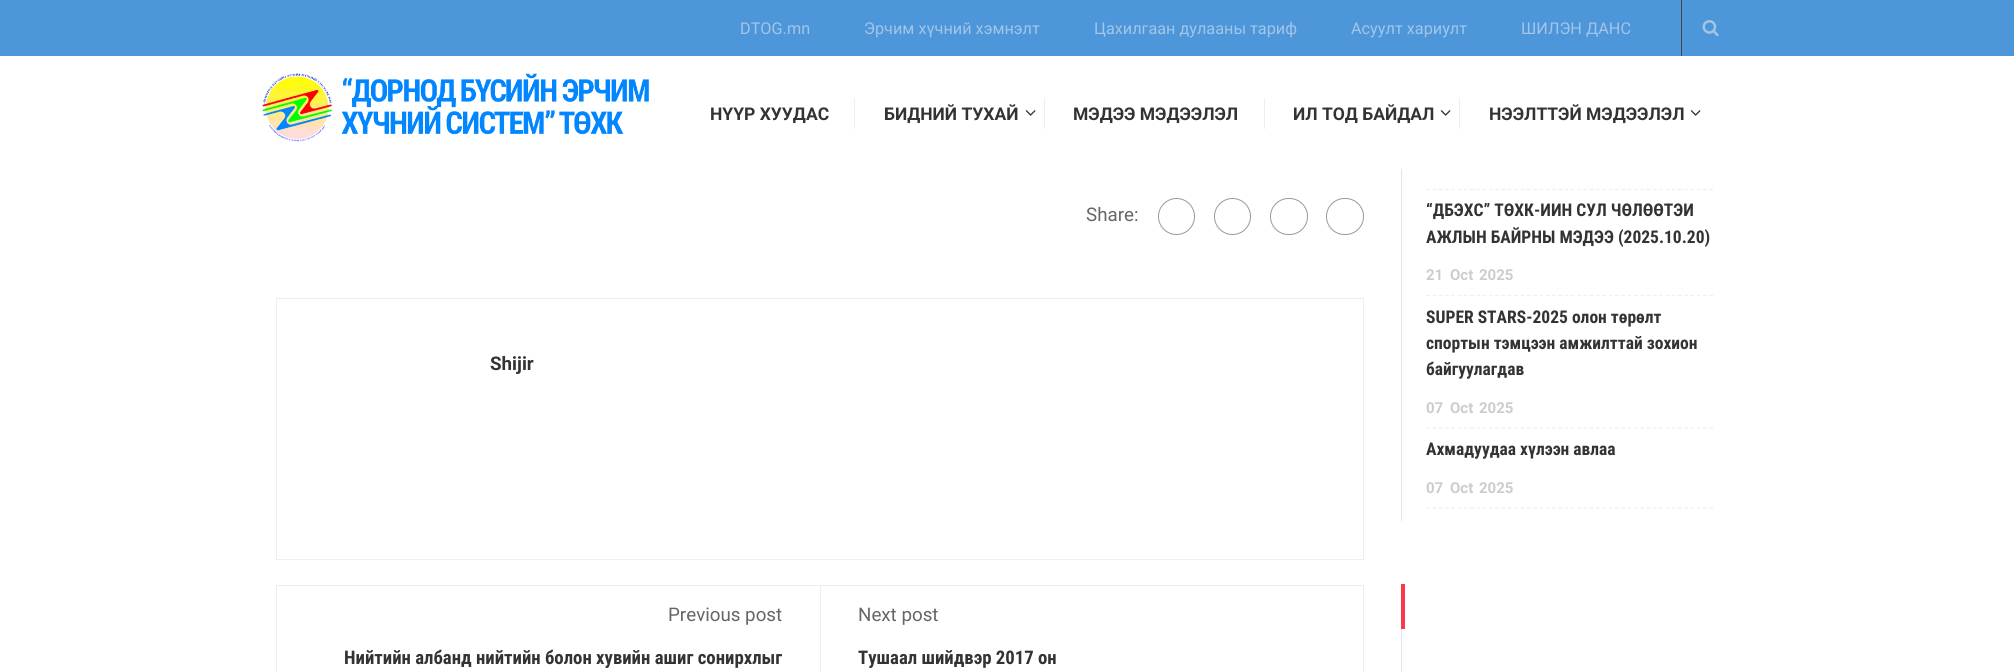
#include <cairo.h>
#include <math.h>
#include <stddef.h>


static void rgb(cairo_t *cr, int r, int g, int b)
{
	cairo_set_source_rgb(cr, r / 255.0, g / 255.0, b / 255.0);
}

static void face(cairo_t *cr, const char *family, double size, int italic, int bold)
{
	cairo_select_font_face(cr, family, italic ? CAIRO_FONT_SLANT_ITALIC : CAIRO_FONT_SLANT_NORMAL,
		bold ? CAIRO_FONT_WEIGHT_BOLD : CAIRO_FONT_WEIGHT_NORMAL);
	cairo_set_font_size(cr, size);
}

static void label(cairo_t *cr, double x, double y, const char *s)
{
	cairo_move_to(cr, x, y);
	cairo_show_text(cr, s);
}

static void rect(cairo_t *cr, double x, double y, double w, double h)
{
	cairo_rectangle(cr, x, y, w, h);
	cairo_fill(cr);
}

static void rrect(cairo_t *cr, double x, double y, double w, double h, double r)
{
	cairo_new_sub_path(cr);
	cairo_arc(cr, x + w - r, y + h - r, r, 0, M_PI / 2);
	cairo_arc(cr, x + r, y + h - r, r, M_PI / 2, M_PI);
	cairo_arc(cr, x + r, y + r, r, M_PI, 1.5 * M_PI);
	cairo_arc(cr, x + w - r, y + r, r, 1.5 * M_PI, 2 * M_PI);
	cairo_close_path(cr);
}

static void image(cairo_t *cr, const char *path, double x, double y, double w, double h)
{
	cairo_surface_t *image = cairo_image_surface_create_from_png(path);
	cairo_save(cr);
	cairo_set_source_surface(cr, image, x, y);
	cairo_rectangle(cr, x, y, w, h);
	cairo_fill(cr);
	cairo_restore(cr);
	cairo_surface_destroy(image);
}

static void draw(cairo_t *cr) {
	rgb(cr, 255, 255, 255);
	cairo_paint(cr);
	rgb(cr, 76, 150, 217);
	rect(cr, 0, 0, 2014, 56);
	face(cr, "Roboto", 16.25, 0, 0);
	rgb(cr, 162, 197, 232);
	label(cr, 740, 34, "DTOG.mn");
	label(cr, 864, 34, "Эрчим хүчний хэмнэлт");
	label(cr, 1094, 34, "Цахилгаан дулааны тариф");
	label(cr, 1351, 34, "Асуулт хариулт");
	label(cr, 1521, 34, "ШИЛЭН ДАНС");
	rgb(cr, 68, 68, 68);
	rect(cr, 1681, 0, 1, 56);
	image(cr, "image0.png", 1702, 20, 17, 17);
	image(cr, "image1.png", 262, 73, 387, 69);
	face(cr, "Roboto", 17.5, 0, 1);
	rgb(cr, 51, 51, 51);
	label(cr, 710, 120, "НҮҮР ХУУДАС");
	rgb(cr, 239, 239, 239);
	rect(cr, 854, 98, 1, 31);
	rgb(cr, 51, 51, 51);
	label(cr, 884, 120, "БИДНИЙ ТУХАЙ");
	image(cr, "image2.png", 1025, 110, 11, 6);
	rgb(cr, 239, 239, 239);
	rect(cr, 1044, 98, 1, 31);
	rgb(cr, 51, 51, 51);
	label(cr, 1073, 120, "МЭДЭЭ МЭДЭЭЛЭЛ");
	rgb(cr, 239, 239, 239);
	rect(cr, 1264, 98, 1, 31);
	rgb(cr, 51, 51, 51);
	label(cr, 1293, 120, "ИЛ ТОД БАЙДАЛ");
	image(cr, "image2.png", 1440, 110, 11, 6);
	rgb(cr, 239, 239, 239);
	rect(cr, 1459, 98, 1, 31);
	rgb(cr, 51, 51, 51);
	label(cr, 1489, 120, "НЭЭЛТТЭЙ МЭДЭЭЛЭЛ");
	image(cr, "image2.png", 1690, 110, 11, 6);
	face(cr, "Roboto", 18.75, 0, 0);
	rgb(cr, 102, 102, 102);
	label(cr, 1086, 221, "Share:");
	cairo_new_path(cr);
	cairo_arc(cr, 1176.5, 216.5, 18, 0, 2 * M_PI);
	rgb(cr, 153, 153, 153);
	cairo_set_line_width(cr, 1);
	cairo_stroke(cr);
	cairo_arc(cr, 1232.5, 216.5, 18, 0, 2 * M_PI);
	cairo_stroke(cr);
	rrect(cr, 1270.5, 198.5, 37, 36, 18);
	cairo_stroke(cr);
	rrect(cr, 1326.5, 198.5, 37, 36, 18);
	cairo_stroke(cr);
	cairo_rectangle(cr, 276.5, 298.5, 1087, 261);
	rgb(cr, 238, 238, 238);
	cairo_stroke(cr);
	face(cr, "Roboto", 18.75, 0, 1);
	rgb(cr, 51, 51, 51);
	label(cr, 490, 370, "Shijir");
	cairo_rectangle(cr, 276.5, 585.5, 1087, 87);
	rgb(cr, 238, 238, 238);
	cairo_stroke(cr);
	face(cr, "Roboto", 18.75, 0, 0);
	rgb(cr, 102, 102, 102);
	label(cr, 668, 621, "Previous post");
	face(cr, "Roboto Condensed", 18.75, 0, 1);
	rgb(cr, 51, 51, 51);
	label(cr, 344, 664, "Нийтийн албанд нийтийн болон хувийн ашиг сонирхлыг");
	rgb(cr, 238, 238, 238);
	rect(cr, 820, 586, 1, 86);
	face(cr, "Roboto", 18.75, 0, 0);
	rgb(cr, 102, 102, 102);
	label(cr, 858, 621, "Next post");
	face(cr, "Roboto Condensed", 18.75, 0, 1);
	rgb(cr, 51, 51, 51);
	label(cr, 858, 664, "Тушаал шийдвэр 2017 он");
	rgb(cr, 229, 229, 229);
	rect(cr, 1401, 169, 1, 352);
	cairo_new_path(cr);
	cairo_move_to(cr, 1426, 189.5);
	cairo_line_to(cr, 1714, 189.5);
	rgb(cr, 239, 239, 239);
	cairo_set_line_width(cr, 1.2);
	cairo_set_dash(cr, (double[]){3.75, 2.55}, 2, 0);
	cairo_stroke(cr);
	cairo_new_path(cr);
	cairo_move_to(cr, 1426, 295.5);
	cairo_line_to(cr, 1714, 295.5);
	cairo_stroke(cr);
	cairo_save(cr);
	cairo_rectangle(cr, 1426, 203, 288, 92);
	cairo_clip(cr);
	face(cr, "Roboto Condensed", 17.5, 0, 1);
	rgb(cr, 51, 51, 51);
	label(cr, 1426, 216, "“ДБЭХС” ТӨХК-ИЙН СУЛ ЧӨЛӨӨТЭЙ");
	cairo_restore(cr);
	face(cr, "Roboto Condensed", 17.5, 0, 1);
	rgb(cr, 51, 51, 51);
	label(cr, 1426, 243, "АЖЛЫН БАЙРНЫ МЭДЭЭ (2025.10.20)");
	face(cr, "Roboto", 15, 0, 1);
	rgb(cr, 204, 204, 204);
	label(cr, 1426, 280, "21");
	label(cr, 1450, 280, "Oct");
	label(cr, 1479, 280, "2025");
	cairo_new_path(cr);
	cairo_move_to(cr, 1426, 428);
	cairo_line_to(cr, 1714, 428);
	rgb(cr, 239, 239, 239);
	cairo_stroke(cr);
	face(cr, "Roboto Condensed", 17.5, 0, 1);
	rgb(cr, 51, 51, 51);
	label(cr, 1426, 323, "SUPER STARS-2025 олон төрөлт");
	label(cr, 1426, 349, "спортын тэмцээн амжилттай зохион");
	label(cr, 1426, 375, "байгуулагдав");
	face(cr, "Roboto", 15, 0, 1);
	rgb(cr, 204, 204, 204);
	label(cr, 1426, 413, "07");
	label(cr, 1450, 413, "Oct");
	label(cr, 1479, 413, "2025");
	cairo_new_path(cr);
	cairo_move_to(cr, 1426, 508);
	cairo_line_to(cr, 1714, 508);
	rgb(cr, 239, 239, 239);
	cairo_stroke(cr);
	face(cr, "Roboto Condensed", 17.5, 0, 1);
	rgb(cr, 51, 51, 51);
	label(cr, 1426, 455, "Ахмадуудаа хүлээн авлаа");
	face(cr, "Roboto", 15, 0, 1);
	rgb(cr, 204, 204, 204);
	label(cr, 1426, 493, "07");
	label(cr, 1450, 493, "Oct");
	label(cr, 1479, 493, "2025");
	rgb(cr, 250, 57, 74);
	rect(cr, 1401, 584, 4, 45);
	rgb(cr, 229, 229, 229);
	rect(cr, 1401, 629, 1, 43);
}

int main(void) {
	cairo_surface_t *surface = cairo_image_surface_create(CAIRO_FORMAT_RGB24, 2014, 672);
	cairo_t *cr = cairo_create(surface);
	cairo_font_options_t *options = cairo_font_options_create();
	cairo_font_options_set_hint_metrics(options, CAIRO_HINT_METRICS_OFF);
	cairo_font_options_set_hint_style(options, CAIRO_HINT_STYLE_NONE);
	cairo_set_font_options(cr, options);
	cairo_set_miter_limit(cr, 4);
	draw(cr);
	cairo_surface_write_to_png(surface, "render.png");
	cairo_font_options_destroy(options);
	cairo_destroy(cr);
	cairo_surface_destroy(surface);
	return 0;
}
